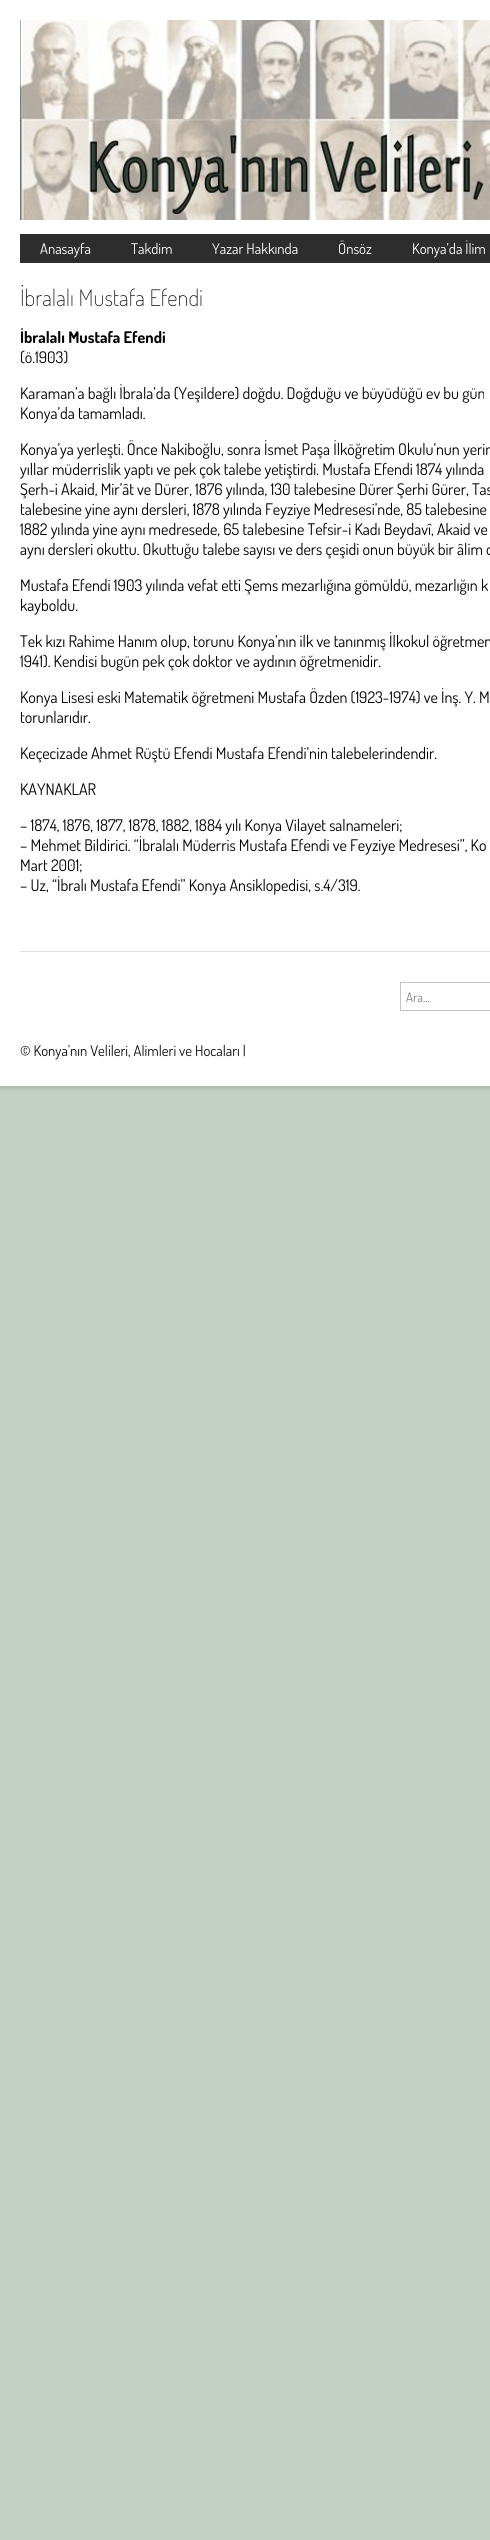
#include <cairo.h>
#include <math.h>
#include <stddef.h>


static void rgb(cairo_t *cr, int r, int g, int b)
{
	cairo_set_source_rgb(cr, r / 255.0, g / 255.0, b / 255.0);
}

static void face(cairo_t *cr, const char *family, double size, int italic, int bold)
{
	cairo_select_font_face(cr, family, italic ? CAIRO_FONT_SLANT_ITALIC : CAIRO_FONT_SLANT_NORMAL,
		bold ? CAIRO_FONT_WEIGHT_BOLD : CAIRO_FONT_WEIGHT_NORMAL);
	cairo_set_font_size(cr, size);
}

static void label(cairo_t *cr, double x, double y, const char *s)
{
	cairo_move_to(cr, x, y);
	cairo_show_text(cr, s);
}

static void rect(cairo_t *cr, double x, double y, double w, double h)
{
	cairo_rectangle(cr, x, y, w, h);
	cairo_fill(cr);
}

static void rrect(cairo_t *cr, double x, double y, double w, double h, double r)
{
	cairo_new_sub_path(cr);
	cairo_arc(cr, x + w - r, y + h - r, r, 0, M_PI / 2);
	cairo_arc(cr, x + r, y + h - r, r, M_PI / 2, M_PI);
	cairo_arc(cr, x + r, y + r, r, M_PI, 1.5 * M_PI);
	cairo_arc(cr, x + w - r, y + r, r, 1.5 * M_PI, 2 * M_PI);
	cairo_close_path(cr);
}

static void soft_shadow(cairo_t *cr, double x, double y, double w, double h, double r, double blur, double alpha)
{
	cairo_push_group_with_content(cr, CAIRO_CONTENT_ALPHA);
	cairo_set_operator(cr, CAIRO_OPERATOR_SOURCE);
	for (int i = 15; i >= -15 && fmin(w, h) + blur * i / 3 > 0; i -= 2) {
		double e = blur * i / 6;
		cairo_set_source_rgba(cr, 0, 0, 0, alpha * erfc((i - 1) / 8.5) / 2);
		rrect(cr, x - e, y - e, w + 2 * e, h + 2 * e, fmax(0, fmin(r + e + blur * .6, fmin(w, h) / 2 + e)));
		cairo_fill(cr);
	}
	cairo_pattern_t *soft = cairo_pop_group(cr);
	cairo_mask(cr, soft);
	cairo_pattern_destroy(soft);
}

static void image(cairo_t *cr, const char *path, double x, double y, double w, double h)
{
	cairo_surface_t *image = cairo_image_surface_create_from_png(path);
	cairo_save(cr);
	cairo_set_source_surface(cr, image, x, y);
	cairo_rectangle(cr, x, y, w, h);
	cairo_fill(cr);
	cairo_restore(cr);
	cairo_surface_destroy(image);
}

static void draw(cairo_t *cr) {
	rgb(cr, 196, 209, 196);
	cairo_paint(cr);
	rgb(cr, 100, 100, 100);
	soft_shadow(cr, 0, 2, 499, 1086, 0, 3, 0.3);
	rgb(cr, 255, 255, 255);
	rect(cr, 0, 0, 490, 1086);
	image(cr, "image0.png", 20, 20, 470, 200);
	rgb(cr, 45, 45, 45);
	rect(cr, 20, 234, 470, 29);
	face(cr, "Dosis", 14.7, 0, 0);
	rgb(cr, 255, 255, 255);
	label(cr, 40, 254, "Anasayfa");
	label(cr, 131, 254, "Takdim");
	label(cr, 212, 254, "Yazar Hakkında");
	label(cr, 338, 254, "Önsöz");
	label(cr, 412, 254, "Konya’da İlim");
	face(cr, "Dosis ExtraLight", 22.75, 0, 0);
	rgb(cr, 29, 29, 29);
	label(cr, 20, 306, "İbralalı Mustafa Efendi");
	face(cr, "Dosis", 16, 0, 1);
	rgb(cr, 0, 0, 0);
	label(cr, 20, 343, "İbralalı Mustafa Efendi");
	face(cr, "Dosis", 16, 0, 0);
	label(cr, 20, 363, "(ö.1903)");
	label(cr, 20, 399, "Karaman’a bağlı İbrala’da (Yeşildere) doğdu. Doğduğu ve büyüdüğü ev bu gün");
	label(cr, 20, 419, "Konya’da tamamladı.");
	label(cr, 20, 455, "Konya’ya yerleşti. Önce Nakiboğlu, sonra İsmet Paşa İlköğretim Okulu’nun yerin");
	label(cr, 20, 475, "yıllar müderrislik yaptı ve pek çok talebe yetiştirdi. Mustafa Efendi 1874 yılında");
	label(cr, 20, 495, "Şerh-i Akaid, Mir’ât ve Dürer, 1876 yılında, 130 talebesine Dürer Şerhi Gürer, Tas");
	label(cr, 20, 515, "talebesine yine aynı dersleri, 1878 yılında Feyziye Medresesi’nde, 85 talebesine");
	label(cr, 20, 535, "1882 yılında yine aynı medresede, 65 talebesine Tefsir-i Kadı Beydavî, Akaid ve");
	label(cr, 20, 555, "aynı dersleri okuttu. Okuttuğu talebe sayısı ve ders çeşidi onun büyük bir âlim o");
	label(cr, 20, 591, "Mustafa Efendi 1903 yılında vefat etti Şems mezarlığına gömüldü, mezarlığın k");
	label(cr, 20, 611, "kayboldu.");
	label(cr, 20, 647, "Tek kızı Rahime Hanım olup, torunu Konya’nın ilk ve tanınmış İlkokul öğretmen");
	label(cr, 20, 667, "1941). Kendisi bugün pek çok doktor ve aydının öğretmenidir.");
	label(cr, 20, 703, "Konya Lisesi eski Matematik öğretmeni Mustafa Özden (1923-1974) ve İnş. Y. M");
	label(cr, 20, 723, "torunlarıdır.");
	label(cr, 20, 759, "Keçecizade Ahmet Rüştü Efendi Mustafa Efendi’nin talebelerindendir.");
	label(cr, 20, 795, "KAYNAKLAR");
	label(cr, 20, 831, "– 1874, 1876, 1877, 1878, 1882, 1884 yılı Konya Vilayet salnameleri;");
	label(cr, 20, 851, "– Mehmet Bildirici. “İbralalı Müderris Mustafa Efendi ve Feyziye Medresesi”, Ko");
	label(cr, 20, 871, "Mart 2001;");
	label(cr, 20, 891, "– Uz, “İbralı Mustafa Efendi” Konya Ansiklopedisi, s.4/319.");
	rgb(cr, 221, 221, 221);
	rect(cr, 20, 951, 470, 1);
	cairo_rectangle(cr, 400.5, 982.5, 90, 28);
	rgb(cr, 195, 195, 195);
	cairo_set_line_width(cr, 1);
	cairo_stroke(cr);
	face(cr, "Dosis", 13, 0, 0);
	rgb(cr, 128, 128, 128);
	label(cr, 406, 1002, "Ara...");
	face(cr, "Dosis", 14.7, 0, 0);
	rgb(cr, 17, 17, 17);
	label(cr, 20, 1056, "© Konya'nın Velileri, Alimleri ve Hocaları |");
}

int main(void) {
	cairo_surface_t *surface = cairo_image_surface_create(CAIRO_FORMAT_RGB24, 490, 2540);
	cairo_t *cr = cairo_create(surface);
	cairo_font_options_t *options = cairo_font_options_create();
	cairo_font_options_set_hint_metrics(options, CAIRO_HINT_METRICS_OFF);
	cairo_font_options_set_hint_style(options, CAIRO_HINT_STYLE_NONE);
	cairo_set_font_options(cr, options);
	cairo_set_miter_limit(cr, 4);
	draw(cr);
	cairo_surface_write_to_png(surface, "render.png");
	cairo_font_options_destroy(options);
	cairo_destroy(cr);
	cairo_surface_destroy(surface);
	return 0;
}
